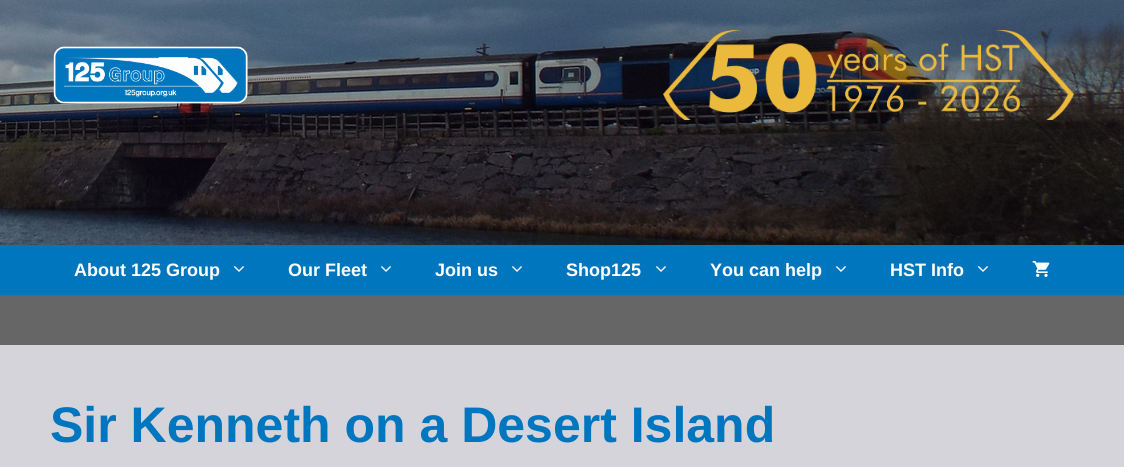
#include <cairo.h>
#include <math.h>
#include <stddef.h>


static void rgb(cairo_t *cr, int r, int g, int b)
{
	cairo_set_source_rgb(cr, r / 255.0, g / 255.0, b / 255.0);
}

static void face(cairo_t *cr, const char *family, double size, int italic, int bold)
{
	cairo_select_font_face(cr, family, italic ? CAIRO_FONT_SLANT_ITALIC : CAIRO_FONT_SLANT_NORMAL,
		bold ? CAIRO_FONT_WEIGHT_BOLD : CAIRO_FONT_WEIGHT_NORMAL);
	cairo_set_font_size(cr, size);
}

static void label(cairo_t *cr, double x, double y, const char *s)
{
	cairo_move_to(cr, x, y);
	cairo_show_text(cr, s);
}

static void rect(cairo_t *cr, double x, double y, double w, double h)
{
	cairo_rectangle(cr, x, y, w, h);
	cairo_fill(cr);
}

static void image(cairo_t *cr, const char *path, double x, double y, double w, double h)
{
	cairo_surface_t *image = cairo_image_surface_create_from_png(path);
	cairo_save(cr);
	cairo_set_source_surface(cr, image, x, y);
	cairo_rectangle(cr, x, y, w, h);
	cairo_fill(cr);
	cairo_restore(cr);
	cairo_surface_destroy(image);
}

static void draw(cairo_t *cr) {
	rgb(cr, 102, 102, 102);
	cairo_paint(cr);
	image(cr, "image0.png", 0, 0, 1124, 245);
	image(cr, "image1.png", 53, 46, 195, 58);
	image(cr, "image2.png", 663, 30, 411, 90);
	rgb(cr, 0, 118, 191);
	rect(cr, 0, 245, 1124, 50);
	face(cr, "Liberation Sans", 18, 0, 1);
	rgb(cr, 255, 255, 255);
	label(cr, 74, 276, "About 125 Group");
	image(cr, "image3.png", 234, 266, 10, 6);
	label(cr, 288, 276, "Our Fleet");
	image(cr, "image3.png", 381, 266, 10, 6);
	label(cr, 435, 276, "Join us");
	image(cr, "image3.png", 512, 266, 10, 6);
	label(cr, 566, 276, "Shop125");
	image(cr, "image3.png", 656, 266, 10, 6);
	label(cr, 710, 276, "You can help");
	image(cr, "image3.png", 836, 266, 10, 6);
	label(cr, 890, 276, "HST Info");
	image(cr, "image3.png", 978, 266, 10, 6);
	image(cr, "image4.png", 1032, 261, 18, 16);
	rgb(cr, 214, 212, 219);
	rect(cr, 0, 345, 1124, 122);
	face(cr, "Liberation Sans", 50, 0, 1);
	rgb(cr, 0, 118, 191);
	label(cr, 50, 442, "Sir Kenneth on a Desert Island");
}

int main(void) {
	cairo_surface_t *surface = cairo_image_surface_create(CAIRO_FORMAT_RGB24, 1124, 467);
	cairo_t *cr = cairo_create(surface);
	cairo_font_options_t *options = cairo_font_options_create();
	cairo_font_options_set_hint_metrics(options, CAIRO_HINT_METRICS_OFF);
	cairo_font_options_set_hint_style(options, CAIRO_HINT_STYLE_NONE);
	cairo_set_font_options(cr, options);
	cairo_set_miter_limit(cr, 4);
	draw(cr);
	cairo_surface_write_to_png(surface, "render.png");
	cairo_font_options_destroy(options);
	cairo_destroy(cr);
	cairo_surface_destroy(surface);
	return 0;
}
